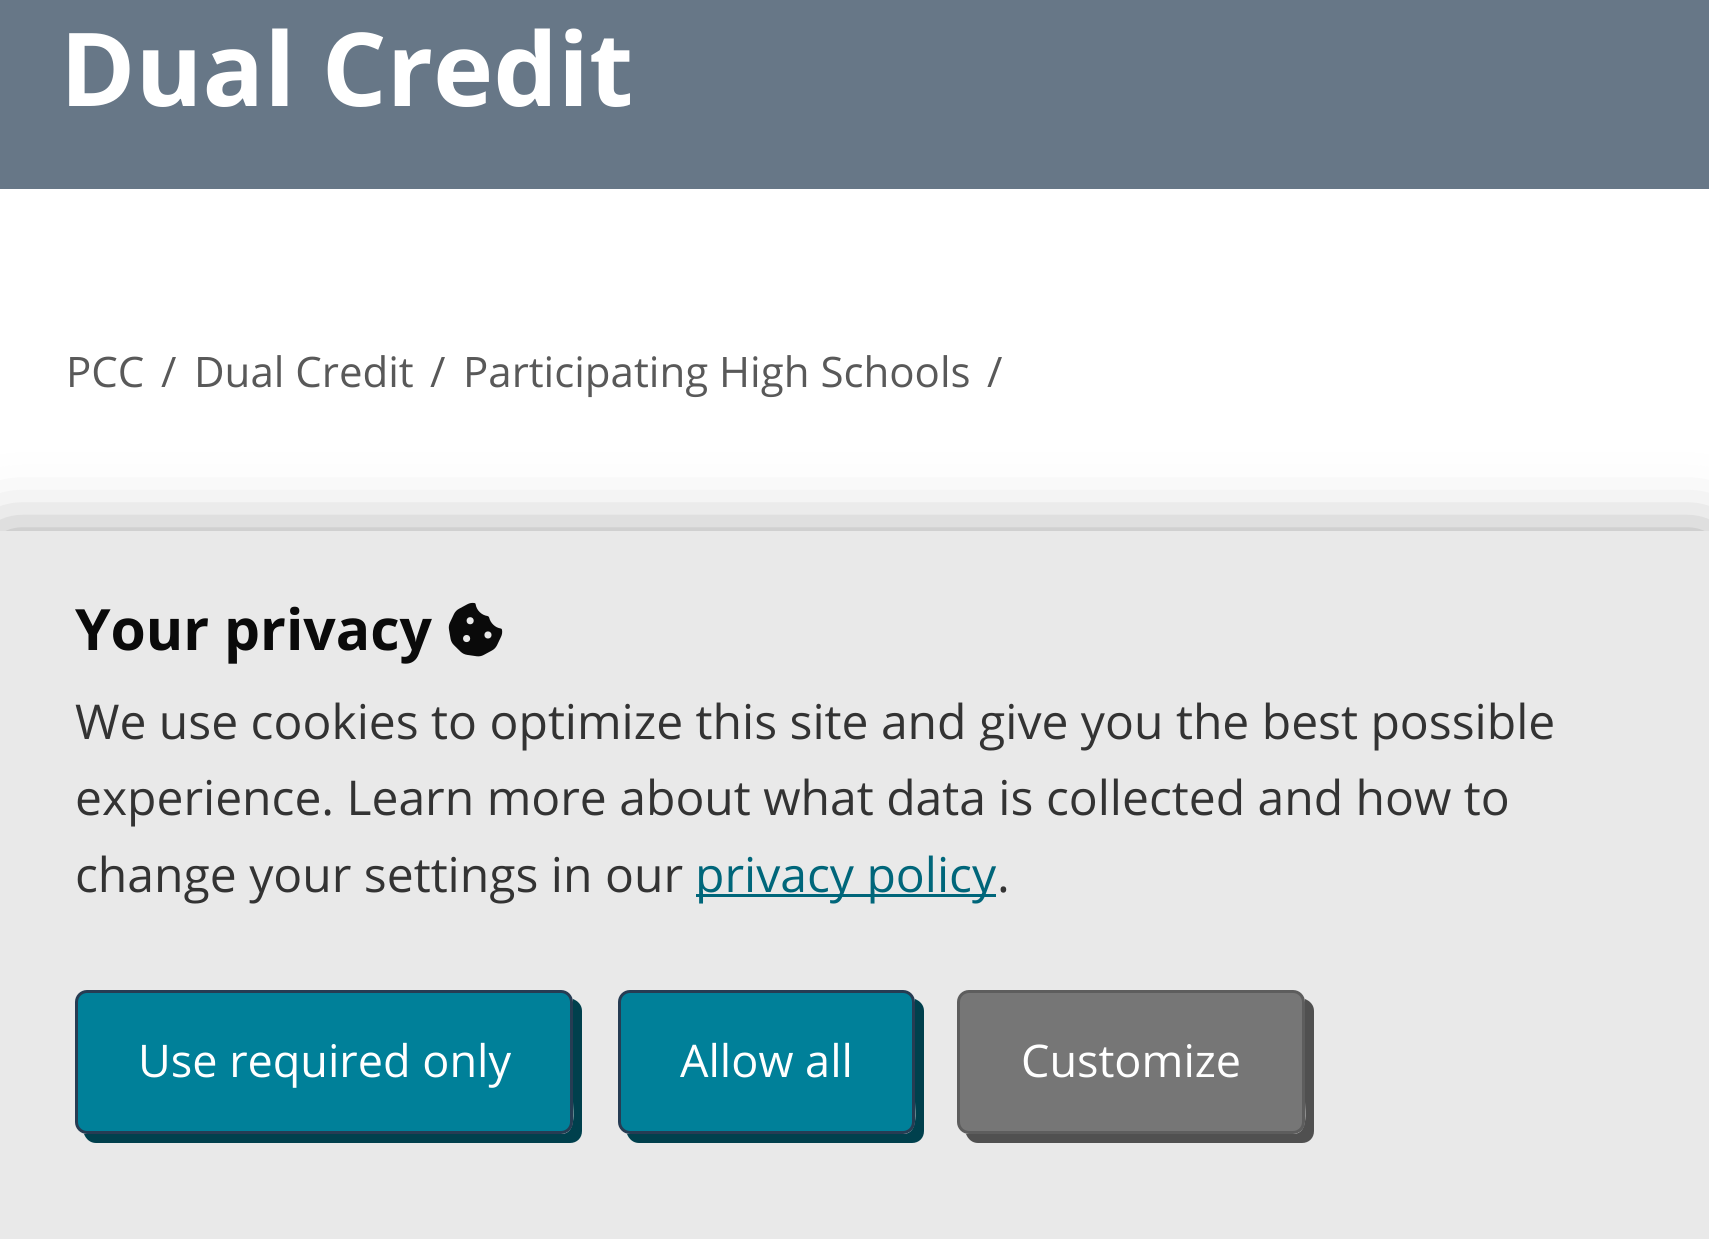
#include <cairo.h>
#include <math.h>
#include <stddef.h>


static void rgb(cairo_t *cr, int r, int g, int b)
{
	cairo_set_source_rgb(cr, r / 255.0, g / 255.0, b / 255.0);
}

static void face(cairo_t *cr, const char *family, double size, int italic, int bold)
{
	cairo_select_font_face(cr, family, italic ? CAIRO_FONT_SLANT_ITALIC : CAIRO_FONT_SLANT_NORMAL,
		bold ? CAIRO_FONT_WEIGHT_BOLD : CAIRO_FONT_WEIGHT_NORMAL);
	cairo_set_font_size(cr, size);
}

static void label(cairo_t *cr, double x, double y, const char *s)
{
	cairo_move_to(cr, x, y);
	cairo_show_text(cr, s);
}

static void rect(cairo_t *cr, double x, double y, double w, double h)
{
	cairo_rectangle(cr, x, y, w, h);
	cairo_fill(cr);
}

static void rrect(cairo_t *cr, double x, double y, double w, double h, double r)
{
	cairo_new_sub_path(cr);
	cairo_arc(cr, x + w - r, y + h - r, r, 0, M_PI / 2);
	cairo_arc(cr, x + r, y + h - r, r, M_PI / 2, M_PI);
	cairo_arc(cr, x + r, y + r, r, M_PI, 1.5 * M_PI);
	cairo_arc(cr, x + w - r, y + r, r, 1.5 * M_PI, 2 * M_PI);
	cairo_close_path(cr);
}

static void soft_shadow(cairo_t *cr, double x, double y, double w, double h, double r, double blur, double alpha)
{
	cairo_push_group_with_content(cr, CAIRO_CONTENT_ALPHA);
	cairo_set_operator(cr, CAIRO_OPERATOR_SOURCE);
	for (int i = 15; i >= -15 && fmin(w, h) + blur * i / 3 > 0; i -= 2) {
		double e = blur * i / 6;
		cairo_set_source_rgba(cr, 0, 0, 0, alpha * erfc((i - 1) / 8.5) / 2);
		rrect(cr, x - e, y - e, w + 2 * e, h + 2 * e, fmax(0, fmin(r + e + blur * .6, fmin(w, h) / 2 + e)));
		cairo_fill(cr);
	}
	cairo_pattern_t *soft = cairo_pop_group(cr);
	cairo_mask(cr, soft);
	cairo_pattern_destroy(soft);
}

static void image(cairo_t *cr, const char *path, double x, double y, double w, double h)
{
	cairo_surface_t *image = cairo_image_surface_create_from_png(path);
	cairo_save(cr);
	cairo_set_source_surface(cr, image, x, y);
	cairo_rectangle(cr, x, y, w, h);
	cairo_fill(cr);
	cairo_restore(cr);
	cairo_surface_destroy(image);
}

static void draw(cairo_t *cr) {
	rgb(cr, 255, 255, 255);
	cairo_paint(cr);
	rgb(cr, 103, 119, 135);
	rect(cr, 0, 0, 1709, 189);
	face(cr, "Open Sans", 102, 0, 1);
	rgb(cr, 255, 255, 255);
	label(cr, 60, 106, "Dual Credit");
	face(cr, "Open Sans", 42, 0, 0);
	rgb(cr, 89, 89, 89);
	label(cr, 66, 387, "PCC");
	label(cr, 161, 387, "/");
	label(cr, 194, 387, "Dual Credit");
	label(cr, 430, 387, "/");
	label(cr, 463, 387, "Participating High Schools");
	label(cr, 987, 387, "/");
	rgb(cr, 0, 0, 0);
	soft_shadow(cr, 0, 546, 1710, 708, 0, 37.5, 0.5);
	rgb(cr, 233, 233, 233);
	rect(cr, 0, 531, 1709, 708);
	face(cr, "Open Sans", 57, 0, 1);
	rgb(cr, 10, 10, 10);
	label(cr, 75, 650, "Your privacy");
	image(cr, "image0.png", 448, 602, 55, 55);
	face(cr, "Open Sans", 48, 0, 0);
	rgb(cr, 51, 51, 51);
	label(cr, 75, 739, "We use cookies to optimize this site and give you the best possible");
	label(cr, 75, 815, "experience. Learn more about what data is collected and how to");
	label(cr, 75, 892, "change your settings in our");
	rgb(cr, 0, 102, 122);
	rect(cr, 696, 894, 300, 3);
	label(cr, 695, 892, "privacy policy");
	rgb(cr, 51, 51, 51);
	label(cr, 997, 892, ".");
	rgb(cr, 0, 64, 77);
	cairo_new_path(cr);
	cairo_move_to(cr, 84, 1134);
	cairo_curve_to(cr, 86, 1139, 90, 1143, 96, 1143);
	cairo_line_to(cr, 570, 1143);
	cairo_curve_to(cr, 577, 1143, 582, 1138, 582, 1131);
	cairo_line_to(cr, 582, 1011);
	cairo_curve_to(cr, 582, 1005, 578, 1001, 573, 999);
	cairo_line_to(cr, 573, 1102);
	cairo_curve_to(cr, 573, 1111, 577, 1134, 561, 1134);
	cairo_close_path(cr);
	cairo_fill(cr);
	rgb(cr, 0, 128, 153);
	rrect(cr, 76.5, 991.5, 495, 141, 10.5);
	cairo_fill_preserve(cr);
	rgb(cr, 38, 60, 83);
	cairo_set_line_width(cr, 3);
	cairo_stroke(cr);
	face(cr, "Open Sans", 45, 0, 0);
	rgb(cr, 255, 255, 255);
	label(cr, 138, 1077, "Use required only");
	rgb(cr, 0, 64, 77);
	cairo_new_path(cr);
	cairo_move_to(cr, 627, 1134);
	cairo_curve_to(cr, 629, 1139, 633, 1143, 639, 1143);
	cairo_line_to(cr, 912, 1143);
	cairo_curve_to(cr, 919, 1143, 924, 1138, 924, 1131);
	cairo_line_to(cr, 924, 1011);
	cairo_curve_to(cr, 924, 1005, 920, 1001, 915, 999);
	cairo_line_to(cr, 915, 1102);
	cairo_curve_to(cr, 915, 1111, 919, 1134, 903, 1134);
	cairo_close_path(cr);
	cairo_fill(cr);
	rgb(cr, 0, 128, 153);
	rrect(cr, 619.5, 991.5, 294, 141, 10.5);
	cairo_fill_preserve(cr);
	rgb(cr, 38, 60, 83);
	cairo_stroke(cr);
	rgb(cr, 255, 255, 255);
	label(cr, 680, 1077, "Allow all");
	rgb(cr, 80, 80, 80);
	cairo_new_path(cr);
	cairo_move_to(cr, 966, 1134);
	cairo_curve_to(cr, 968, 1139, 972, 1143, 978, 1143);
	cairo_line_to(cr, 1302, 1143);
	cairo_curve_to(cr, 1309, 1143, 1314, 1138, 1314, 1131);
	cairo_line_to(cr, 1314, 1011);
	cairo_curve_to(cr, 1314, 1005, 1310, 1001, 1305, 999);
	cairo_line_to(cr, 1305, 1102);
	cairo_curve_to(cr, 1305, 1111, 1309, 1134, 1293, 1134);
	cairo_close_path(cr);
	cairo_fill(cr);
	rgb(cr, 118, 118, 118);
	rrect(cr, 958.5, 991.5, 345, 141, 10.5);
	cairo_fill_preserve(cr);
	rgb(cr, 93, 93, 93);
	cairo_stroke(cr);
	rgb(cr, 255, 255, 255);
	label(cr, 1021, 1077, "Customize");
}

int main(void) {
	cairo_surface_t *surface = cairo_image_surface_create(CAIRO_FORMAT_RGB24, 1709, 1239);
	cairo_t *cr = cairo_create(surface);
	cairo_font_options_t *options = cairo_font_options_create();
	cairo_font_options_set_hint_metrics(options, CAIRO_HINT_METRICS_OFF);
	cairo_font_options_set_hint_style(options, CAIRO_HINT_STYLE_NONE);
	cairo_set_font_options(cr, options);
	cairo_set_miter_limit(cr, 4);
	draw(cr);
	cairo_surface_write_to_png(surface, "render.png");
	cairo_font_options_destroy(options);
	cairo_destroy(cr);
	cairo_surface_destroy(surface);
	return 0;
}
